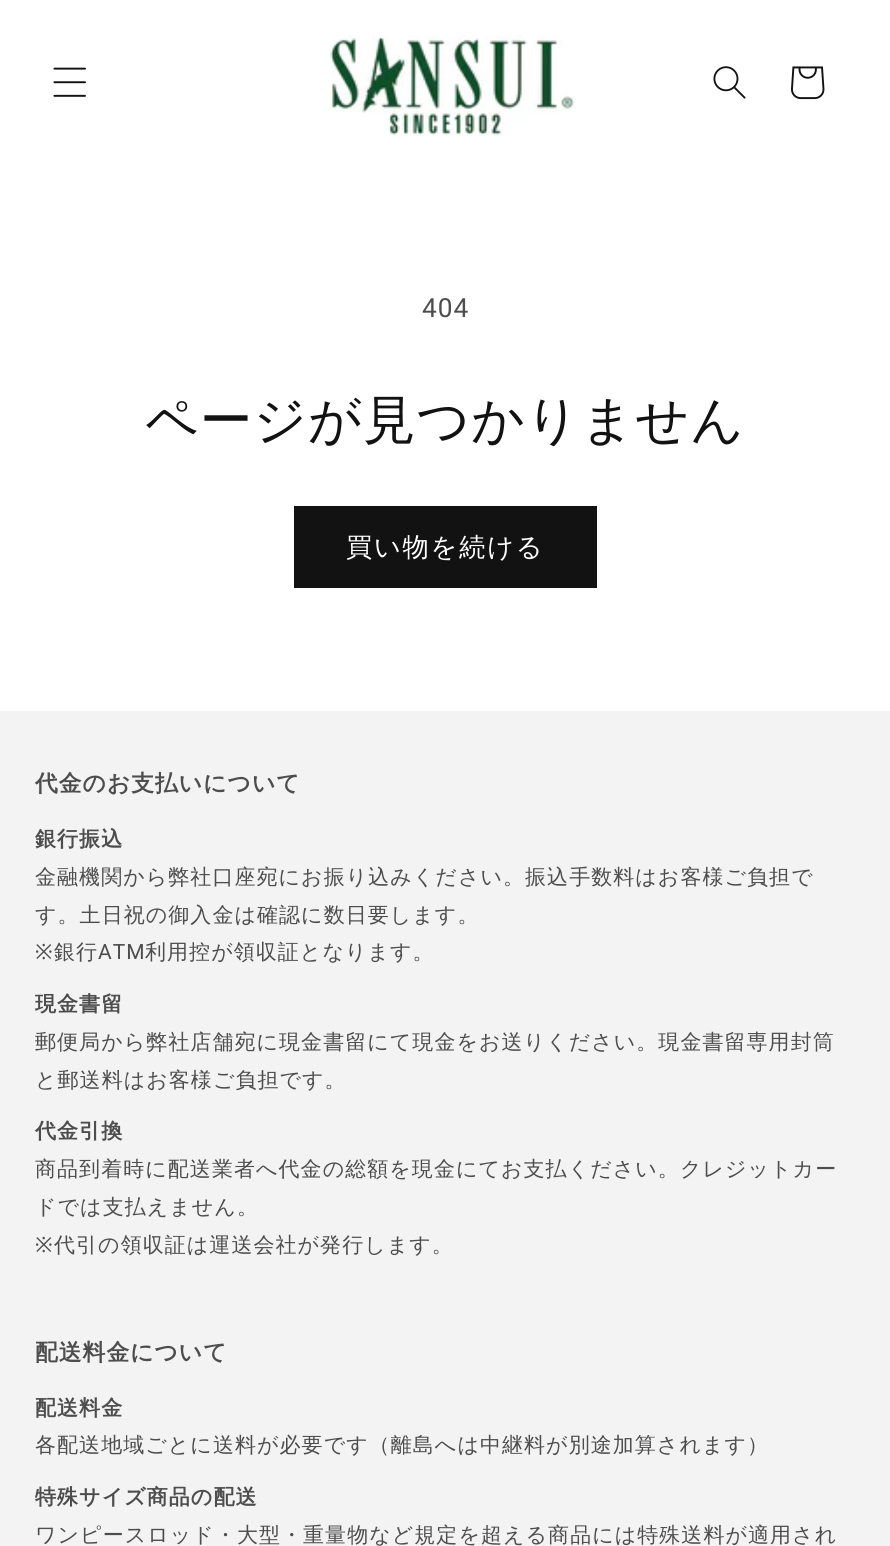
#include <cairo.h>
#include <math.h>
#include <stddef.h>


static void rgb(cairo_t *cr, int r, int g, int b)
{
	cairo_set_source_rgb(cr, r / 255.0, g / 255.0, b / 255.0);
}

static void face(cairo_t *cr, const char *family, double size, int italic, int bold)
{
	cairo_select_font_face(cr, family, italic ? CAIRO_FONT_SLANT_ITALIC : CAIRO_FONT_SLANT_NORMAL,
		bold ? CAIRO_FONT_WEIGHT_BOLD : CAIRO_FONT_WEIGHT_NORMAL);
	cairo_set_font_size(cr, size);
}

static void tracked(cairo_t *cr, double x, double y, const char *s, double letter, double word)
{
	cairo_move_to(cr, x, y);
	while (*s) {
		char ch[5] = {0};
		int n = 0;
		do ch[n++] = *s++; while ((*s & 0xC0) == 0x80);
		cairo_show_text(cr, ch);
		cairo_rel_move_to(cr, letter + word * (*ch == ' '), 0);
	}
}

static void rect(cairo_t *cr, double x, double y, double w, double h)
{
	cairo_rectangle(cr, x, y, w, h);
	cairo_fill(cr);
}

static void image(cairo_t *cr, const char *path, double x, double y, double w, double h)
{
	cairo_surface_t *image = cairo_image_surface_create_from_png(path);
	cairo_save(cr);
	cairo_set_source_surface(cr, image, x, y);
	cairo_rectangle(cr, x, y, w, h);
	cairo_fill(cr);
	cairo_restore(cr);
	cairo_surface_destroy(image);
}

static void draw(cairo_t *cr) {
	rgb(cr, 255, 255, 255);
	cairo_paint(cr);
	image(cr, "image0.png", 53, 67, 33, 30);
	image(cr, "image1.png", 330, 35, 246, 102);
	image(cr, "image2.png", 713, 66, 33, 33);
	image(cr, "image3.png", 791, 66, 34, 34);
	face(cr, "Roboto", 26.25, 0, 0);
	rgb(cr, 77, 77, 77);
	tracked(cr, 422, 317, "404", 1.05, 0);
	face(cr, "WenQuanYi Zen Hei Medium", 52.5, 0, 0);
	rgb(cr, 18, 18, 18);
	tracked(cr, 145, 438, "ページが見つかりません", 1.05, 0);
	rect(cr, 294, 506, 303, 82);
	face(cr, "WenQuanYi Zen Hei Medium", 26.25, 0, 0);
	rgb(cr, 255, 255, 255);
	tracked(cr, 346, 556, "買い物を続ける", 1.75, 0);
	rgb(cr, 243, 243, 243);
	rect(cr, 0, 711, 890, 835);
	face(cr, "WenQuanYi Zen Hei", 22.75, 0, 1);
	rgb(cr, 77, 77, 77);
	tracked(cr, 35, 791, "代金のお支払いについて", 1.05, 0);
	face(cr, "WenQuanYi Zen Hei", 21, 0, 1);
	tracked(cr, 35, 846, "銀行振込", 1.05, 0);
	face(cr, "WenQuanYi Zen Hei Medium", 21, 0, 0);
	tracked(cr, 35, 884, "金融機関から弊社口座宛にお振り込みください。振込手数料はお客様ご負担で", 1.05, 0);
	tracked(cr, 35, 922, "す。土日祝の御入金は確認に数日要します。", 1.05, 0);
	face(cr, "Noto Sans", 21, 0, 0);
	tracked(cr, 35, 959, "※", 1.05, 0);
	face(cr, "WenQuanYi Zen Hei Medium", 21, 0, 0);
	tracked(cr, 54, 959, "銀行", 1.05, 0);
	face(cr, "Roboto", 21, 0, 0);
	tracked(cr, 98, 959, "ATM", 1.05, 0);
	face(cr, "WenQuanYi Zen Hei Medium", 21, 0, 0);
	tracked(cr, 145, 959, "利用控が領収証となります。", 1.05, 0);
	face(cr, "WenQuanYi Zen Hei", 21, 0, 1);
	tracked(cr, 35, 1011, "現金書留", 1.05, 0);
	face(cr, "WenQuanYi Zen Hei Medium", 21, 0, 0);
	tracked(cr, 35, 1049, "郵便局から弊社店舗宛に現金書留にて現金をお送りください。現金書留専用封筒", 1.05, 0);
	tracked(cr, 35, 1087, "と郵送料はお客様ご負担です。", 1.05, 0);
	face(cr, "WenQuanYi Zen Hei", 21, 0, 1);
	tracked(cr, 35, 1138, "代金引換", 1.05, 0);
	face(cr, "WenQuanYi Zen Hei Medium", 21, 0, 0);
	tracked(cr, 35, 1176, "商品到着時に配送業者へ代金の総額を現金にてお支払ください。クレジットカー", 1.05, 0);
	tracked(cr, 35, 1214, "ドでは支払えません。", 1.05, 0);
	face(cr, "Noto Sans", 21, 0, 0);
	tracked(cr, 35, 1252, "※", 1.05, 0);
	face(cr, "WenQuanYi Zen Hei Medium", 21, 0, 0);
	tracked(cr, 54, 1252, "代引の領収証は運送会社が発行します。", 1.05, 0);
	face(cr, "WenQuanYi Zen Hei", 22.75, 0, 1);
	tracked(cr, 35, 1360, "配送料金について", 1.05, 0);
	face(cr, "WenQuanYi Zen Hei", 21, 0, 1);
	tracked(cr, 35, 1415, "配送料金", 1.05, 0);
	face(cr, "WenQuanYi Zen Hei Medium", 21, 0, 0);
	tracked(cr, 35, 1452, "各配送地域ごとに送料が必要です（離島へは中継料が別途加算されます）", 1.05, 0);
	face(cr, "WenQuanYi Zen Hei", 21, 0, 1);
	tracked(cr, 35, 1504, "特殊サイズ商品の配送", 1.05, 0);
	face(cr, "WenQuanYi Zen Hei Medium", 21, 0, 0);
	tracked(cr, 35, 1542, "ワンピースロッド・大型・重量物など規定を超える商品には特殊送料が適用され", 1.05, 0);
}

int main(void) {
	cairo_surface_t *surface = cairo_image_surface_create(CAIRO_FORMAT_RGB24, 890, 1546);
	cairo_t *cr = cairo_create(surface);
	cairo_font_options_t *options = cairo_font_options_create();
	cairo_font_options_set_hint_metrics(options, CAIRO_HINT_METRICS_OFF);
	cairo_font_options_set_hint_style(options, CAIRO_HINT_STYLE_NONE);
	cairo_set_font_options(cr, options);
	cairo_set_miter_limit(cr, 4);
	draw(cr);
	cairo_surface_write_to_png(surface, "render.png");
	cairo_font_options_destroy(options);
	cairo_destroy(cr);
	cairo_surface_destroy(surface);
	return 0;
}
